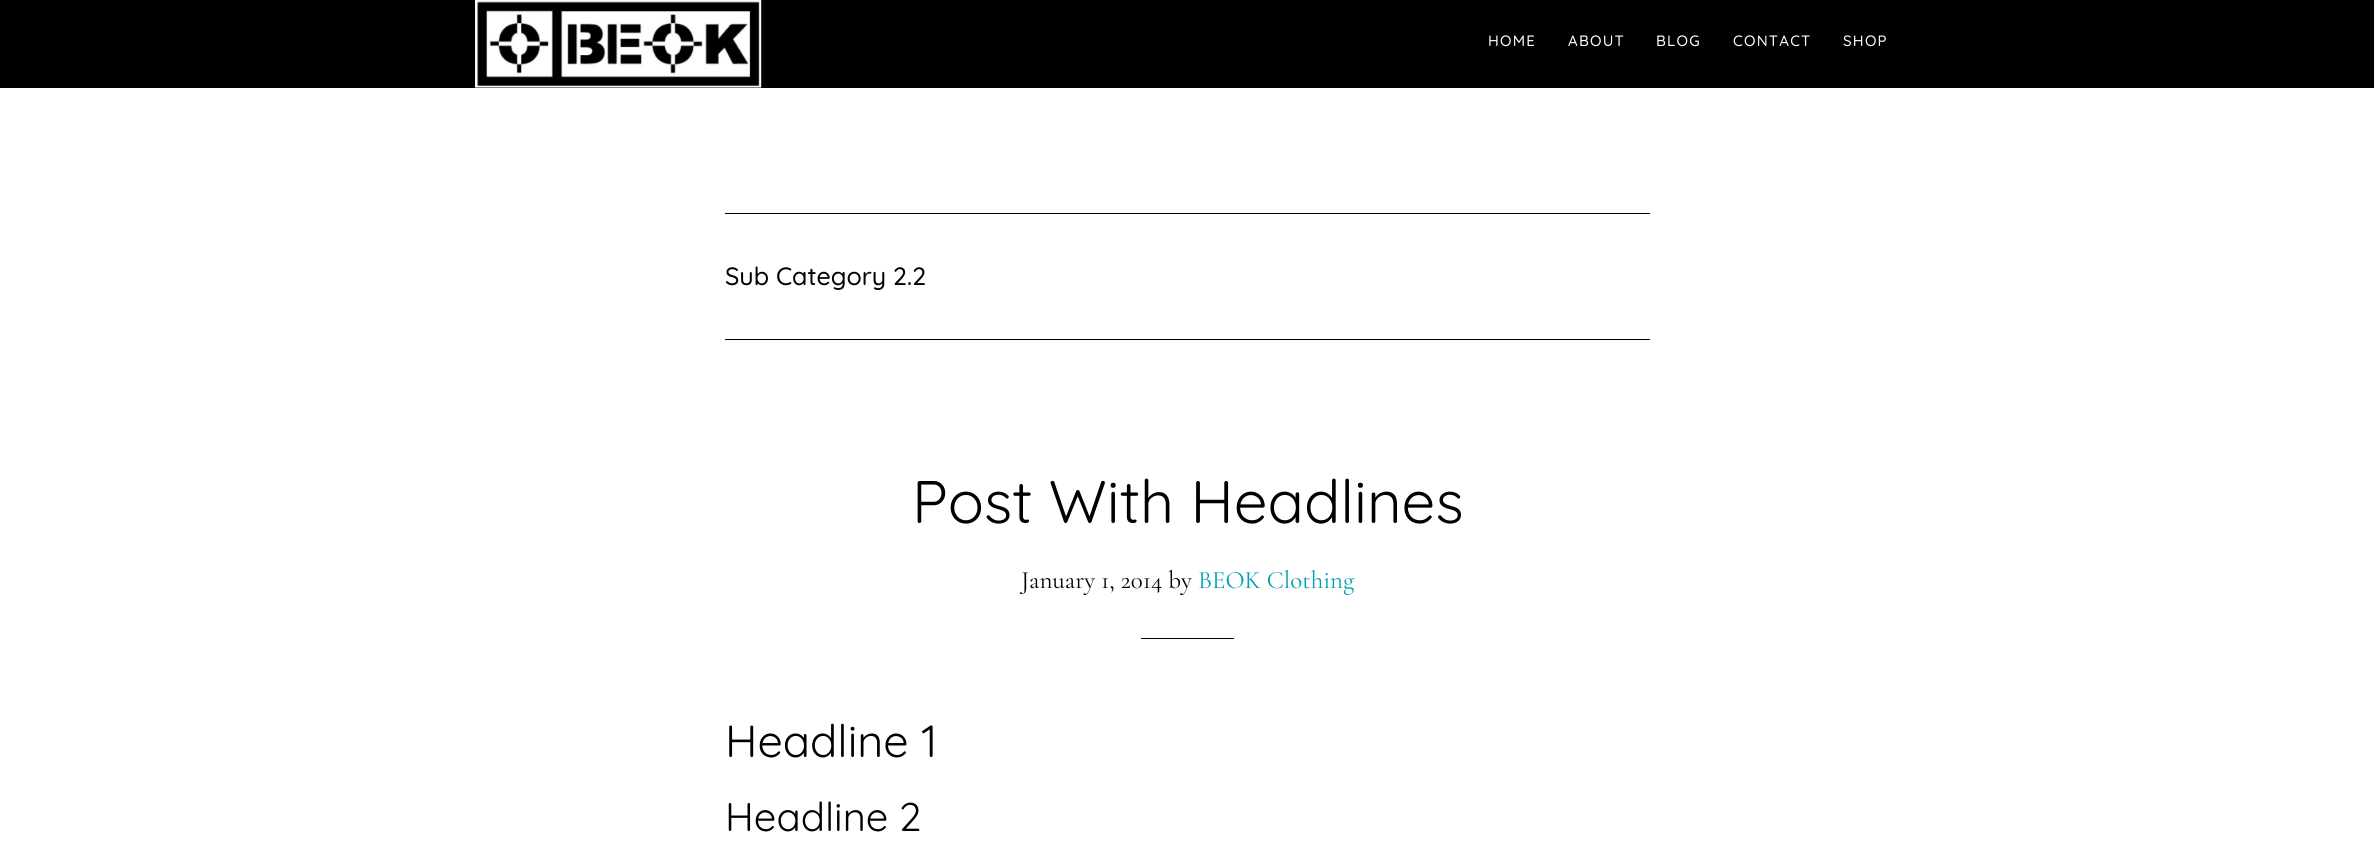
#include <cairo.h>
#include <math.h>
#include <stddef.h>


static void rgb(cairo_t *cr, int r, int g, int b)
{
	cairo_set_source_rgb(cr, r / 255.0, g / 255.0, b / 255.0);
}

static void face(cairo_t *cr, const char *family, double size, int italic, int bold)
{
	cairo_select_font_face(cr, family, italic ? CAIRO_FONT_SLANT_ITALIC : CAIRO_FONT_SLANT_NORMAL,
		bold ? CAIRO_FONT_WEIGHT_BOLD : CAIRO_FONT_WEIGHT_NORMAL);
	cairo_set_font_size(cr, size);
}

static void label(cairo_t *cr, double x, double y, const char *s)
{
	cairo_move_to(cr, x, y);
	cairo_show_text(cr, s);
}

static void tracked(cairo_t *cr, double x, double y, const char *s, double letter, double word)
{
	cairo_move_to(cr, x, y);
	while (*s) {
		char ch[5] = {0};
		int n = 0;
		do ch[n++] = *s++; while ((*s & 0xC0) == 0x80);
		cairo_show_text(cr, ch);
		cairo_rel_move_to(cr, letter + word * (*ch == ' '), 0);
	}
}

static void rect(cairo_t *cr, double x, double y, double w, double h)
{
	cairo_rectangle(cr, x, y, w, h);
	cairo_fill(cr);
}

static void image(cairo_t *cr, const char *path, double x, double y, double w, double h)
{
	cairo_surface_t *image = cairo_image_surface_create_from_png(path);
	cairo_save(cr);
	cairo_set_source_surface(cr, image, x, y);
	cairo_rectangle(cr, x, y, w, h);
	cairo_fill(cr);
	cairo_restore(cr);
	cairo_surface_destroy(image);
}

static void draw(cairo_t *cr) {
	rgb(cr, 255, 255, 255);
	cairo_paint(cr);
	rgb(cr, 0, 0, 0);
	rect(cr, 0, 0, 2374, 88);
	image(cr, "image0.png", 475, 0, 287, 88);
	face(cr, "Quicksand Medium", 15, 0, 0);
	rgb(cr, 255, 255, 255);
	tracked(cr, 1488, 46, "HOME", 1.25, 0);
	tracked(cr, 1568, 46, "ABOUT", 1.25, 0);
	tracked(cr, 1656, 46, "BLOG", 1.25, 0);
	tracked(cr, 1733, 46, "CONTACT", 1.25, 0);
	tracked(cr, 1843, 46, "SHOP", 1.25, 0);
	rgb(cr, 0, 0, 0);
	rect(cr, 725, 213, 925, 1);
	rect(cr, 725, 339, 925, 1);
	face(cr, "Quicksand Medium", 25, 0, 0);
	label(cr, 725, 285, "Sub Category 2.2");
	face(cr, "Quicksand", 60, 0, 0);
	label(cr, 912, 523, "Post With Headlines");
	face(cr, "Cormorant Garamond", 25, 0, 0);
	label(cr, 1021, 588, "January 1, 2014 by");
	rgb(cr, 0, 160, 175);
	label(cr, 1198, 588, "BEOK Clothing");
	rgb(cr, 0, 0, 0);
	rect(cr, 1141, 638, 93, 1);
	face(cr, "Quicksand", 45, 0, 0);
	label(cr, 725, 757, "Headline 1");
	face(cr, "Quicksand", 40, 0, 0);
	label(cr, 725, 831, "Headline 2");
}

int main(void) {
	cairo_surface_t *surface = cairo_image_surface_create(CAIRO_FORMAT_RGB24, 2374, 866);
	cairo_t *cr = cairo_create(surface);
	cairo_font_options_t *options = cairo_font_options_create();
	cairo_font_options_set_hint_metrics(options, CAIRO_HINT_METRICS_OFF);
	cairo_font_options_set_hint_style(options, CAIRO_HINT_STYLE_NONE);
	cairo_set_font_options(cr, options);
	cairo_set_miter_limit(cr, 4);
	draw(cr);
	cairo_surface_write_to_png(surface, "render.png");
	cairo_font_options_destroy(options);
	cairo_destroy(cr);
	cairo_surface_destroy(surface);
	return 0;
}
